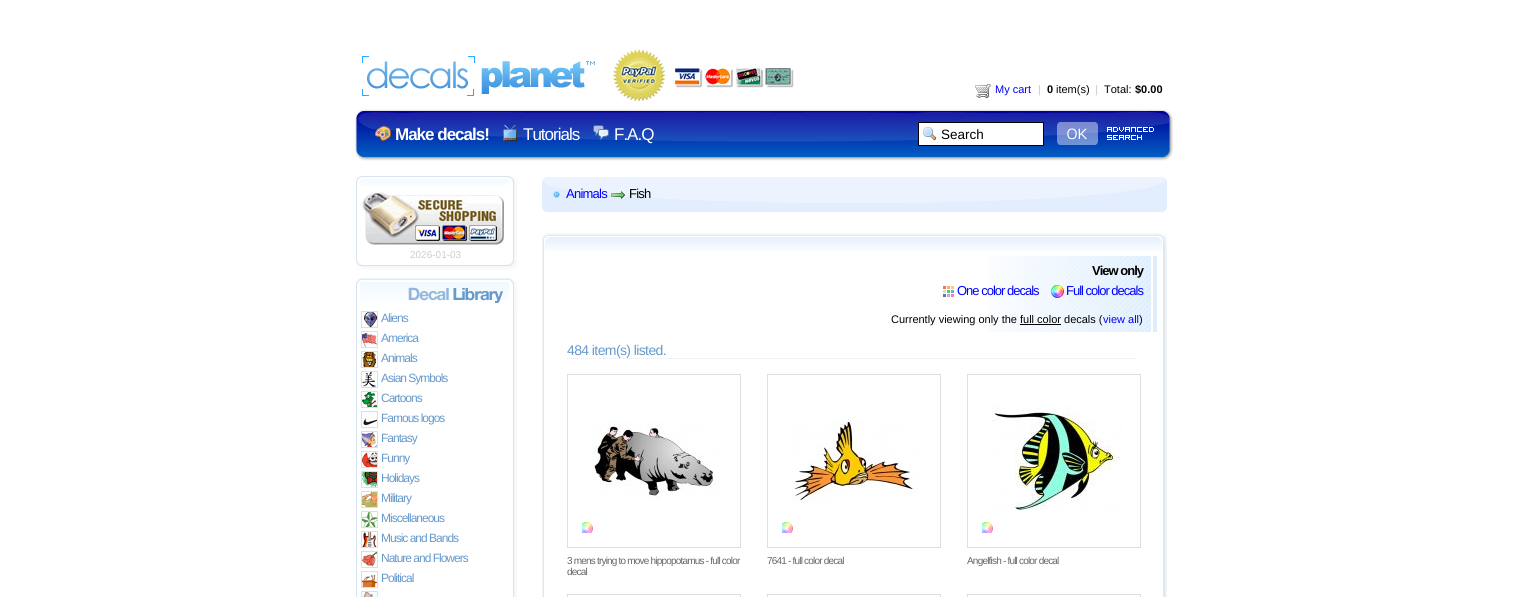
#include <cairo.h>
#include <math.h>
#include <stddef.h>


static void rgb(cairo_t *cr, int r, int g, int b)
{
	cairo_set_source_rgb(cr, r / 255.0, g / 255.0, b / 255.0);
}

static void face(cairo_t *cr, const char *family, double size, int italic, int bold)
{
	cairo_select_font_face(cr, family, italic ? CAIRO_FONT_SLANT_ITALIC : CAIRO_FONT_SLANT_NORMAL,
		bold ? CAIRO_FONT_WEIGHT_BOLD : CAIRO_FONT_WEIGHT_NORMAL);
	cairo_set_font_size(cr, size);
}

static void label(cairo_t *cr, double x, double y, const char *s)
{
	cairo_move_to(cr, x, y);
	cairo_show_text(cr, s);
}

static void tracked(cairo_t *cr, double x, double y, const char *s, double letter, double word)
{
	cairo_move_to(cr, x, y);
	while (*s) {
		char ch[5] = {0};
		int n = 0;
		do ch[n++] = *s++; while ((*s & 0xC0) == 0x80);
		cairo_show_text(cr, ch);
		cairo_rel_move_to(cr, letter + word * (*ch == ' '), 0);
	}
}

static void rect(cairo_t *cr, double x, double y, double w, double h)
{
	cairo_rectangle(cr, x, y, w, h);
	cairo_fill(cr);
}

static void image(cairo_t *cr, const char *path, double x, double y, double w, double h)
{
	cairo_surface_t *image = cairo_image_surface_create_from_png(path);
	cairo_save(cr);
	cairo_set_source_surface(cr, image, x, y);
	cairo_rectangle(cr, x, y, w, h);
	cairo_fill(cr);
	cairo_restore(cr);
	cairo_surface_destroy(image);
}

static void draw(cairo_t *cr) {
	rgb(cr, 255, 255, 255);
	cairo_paint(cr);
	image(cr, "image0.png", 355, 49, 818, 112);
	image(cr, "image1.png", 975, 84, 16, 14);
	face(cr, "Liberation Sans", 11, 0, 0);
	rgb(cr, 0, 0, 255);
	label(cr, 995, 93, "My cart");
	rgb(cr, 204, 204, 204);
	label(cr, 1038, 93, "|");
	face(cr, "Liberation Sans", 11, 0, 1);
	rgb(cr, 0, 0, 0);
	label(cr, 1047, 93, "0");
	face(cr, "Liberation Sans", 11, 0, 0);
	label(cr, 1056, 93, "item(s)");
	rgb(cr, 204, 204, 204);
	label(cr, 1095, 93, "|");
	rgb(cr, 0, 0, 0);
	label(cr, 1104, 93, "Total:");
	face(cr, "Liberation Sans", 11, 0, 1);
	label(cr, 1135, 93, "$0.00");
	image(cr, "image2.png", 375, 126, 16, 15);
	face(cr, "Liberation Sans", 17, 0, 1);
	rgb(cr, 255, 255, 255);
	tracked(cr, 395, 140, "Make decals!", -1, 0);
	image(cr, "image3.png", 503, 125, 14, 16);
	face(cr, "Liberation Sans", 17, 0, 0);
	tracked(cr, 523, 140, "Tutorials", -1, 0);
	image(cr, "image4.png", 593, 125, 16, 15);
	tracked(cr, 614, 140, "F.A.Q", -1, 0);
	rect(cr, 919, 123, 124, 22);
	image(cr, "image5.png", 923, 127, 13, 14);
	cairo_rectangle(cr, 918.5, 122.5, 125, 23);
	rgb(cr, 0, 0, 0);
	cairo_set_line_width(cr, 1);
	cairo_stroke(cr);
	face(cr, "Liberation Sans", 13.5, 0, 0);
	label(cr, 941, 139, "Search");
	image(cr, "image6.png", 1057, 122, 41, 23);
	image(cr, "image7.png", 1107, 127, 47, 13);
	image(cr, "image8.png", 356, 176, 162, 10);
	image(cr, "image9.png", 356, 186, 161, 74);
	image(cr, "image10.png", 362, 192, 143, 53);
	face(cr, "Liberation Sans", 10, 0, 0);
	rgb(cr, 204, 204, 204);
	label(cr, 410, 258, "2026-01-03");
	image(cr, "image11.png", 356, 260, 162, 10);
	image(cr, "image12.png", 356, 278, 162, 31);
	image(cr, "image13.png", 356, 309, 161, 288);
	image(cr, "image14.png", 362, 312, 15, 15);
	cairo_rectangle(cr, 361.5, 311.5, 16, 16);
	rgb(cr, 222, 217, 255);
	cairo_stroke(cr);
	face(cr, "Liberation Sans", 12, 0, 0);
	rgb(cr, 102, 153, 204);
	tracked(cr, 381, 322, "Aliens", -1, 0);
	image(cr, "image15.png", 362, 332, 15, 15);
	cairo_rectangle(cr, 361.5, 331.5, 16, 16);
	rgb(cr, 222, 217, 255);
	cairo_stroke(cr);
	rgb(cr, 102, 153, 204);
	tracked(cr, 381, 342, "America", -1, 0);
	image(cr, "image16.png", 362, 352, 15, 15);
	cairo_rectangle(cr, 361.5, 351.5, 16, 16);
	rgb(cr, 222, 217, 255);
	cairo_stroke(cr);
	rgb(cr, 102, 153, 204);
	tracked(cr, 381, 362, "Animals", -1, 0);
	image(cr, "image17.png", 362, 372, 15, 15);
	cairo_rectangle(cr, 361.5, 371.5, 16, 16);
	rgb(cr, 222, 217, 255);
	cairo_stroke(cr);
	rgb(cr, 102, 153, 204);
	tracked(cr, 381, 382, "Asian Symbols", -1, 0);
	image(cr, "image18.png", 362, 392, 15, 15);
	cairo_rectangle(cr, 361.5, 391.5, 16, 16);
	rgb(cr, 222, 217, 255);
	cairo_stroke(cr);
	rgb(cr, 102, 153, 204);
	tracked(cr, 381, 402, "Cartoons", -1, 0);
	image(cr, "image19.png", 362, 412, 15, 15);
	cairo_rectangle(cr, 361.5, 411.5, 16, 16);
	rgb(cr, 222, 217, 255);
	cairo_stroke(cr);
	rgb(cr, 102, 153, 204);
	tracked(cr, 381, 422, "Famous logos", -1, 0);
	image(cr, "image20.png", 362, 432, 15, 15);
	cairo_rectangle(cr, 361.5, 431.5, 16, 16);
	rgb(cr, 222, 217, 255);
	cairo_stroke(cr);
	rgb(cr, 102, 153, 204);
	tracked(cr, 381, 442, "Fantasy", -1, 0);
	image(cr, "image21.png", 362, 452, 15, 15);
	cairo_rectangle(cr, 361.5, 451.5, 16, 16);
	rgb(cr, 222, 217, 255);
	cairo_stroke(cr);
	rgb(cr, 102, 153, 204);
	tracked(cr, 381, 462, "Funny", -1, 0);
	image(cr, "image22.png", 362, 472, 15, 15);
	cairo_rectangle(cr, 361.5, 471.5, 16, 16);
	rgb(cr, 222, 217, 255);
	cairo_stroke(cr);
	rgb(cr, 102, 153, 204);
	tracked(cr, 381, 482, "Holidays", -1, 0);
	image(cr, "image23.png", 362, 492, 15, 15);
	cairo_rectangle(cr, 361.5, 491.5, 16, 16);
	rgb(cr, 222, 217, 255);
	cairo_stroke(cr);
	rgb(cr, 102, 153, 204);
	tracked(cr, 381, 502, "Military", -1, 0);
	image(cr, "image24.png", 362, 512, 15, 15);
	cairo_rectangle(cr, 361.5, 511.5, 16, 16);
	rgb(cr, 222, 217, 255);
	cairo_stroke(cr);
	rgb(cr, 102, 153, 204);
	tracked(cr, 381, 522, "Miscellaneous", -1, 0);
	image(cr, "image25.png", 362, 532, 15, 15);
	cairo_rectangle(cr, 361.5, 531.5, 16, 16);
	rgb(cr, 222, 217, 255);
	cairo_stroke(cr);
	rgb(cr, 102, 153, 204);
	tracked(cr, 381, 542, "Music and Bands", -1, 0);
	image(cr, "image26.png", 362, 552, 15, 15);
	cairo_rectangle(cr, 361.5, 551.5, 16, 16);
	rgb(cr, 222, 217, 255);
	cairo_stroke(cr);
	rgb(cr, 102, 153, 204);
	tracked(cr, 381, 562, "Nature and Flowers", -1, 0);
	image(cr, "image27.png", 362, 572, 15, 15);
	cairo_rectangle(cr, 361.5, 571.5, 16, 16);
	rgb(cr, 222, 217, 255);
	cairo_stroke(cr);
	rgb(cr, 102, 153, 204);
	tracked(cr, 381, 582, "Political", -1, 0);
	image(cr, "image28.png", 362, 592, 15, 5);
	cairo_rectangle(cr, 361.5, 591.5, 16, 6);
	rgb(cr, 222, 217, 255);
	cairo_stroke(cr);
	image(cr, "image29.png", 542, 177, 625, 35);
	image(cr, "image30.png", 553, 191, 7, 7);
	face(cr, "Liberation Sans", 13, 0, 0);
	rgb(cr, 0, 0, 255);
	tracked(cr, 566, 198, "Animals", -0.75, 0);
	image(cr, "image31.png", 611, 191, 14, 8);
	rgb(cr, 0, 0, 0);
	tracked(cr, 629, 198, "Fish", -0.75, 0);
	image(cr, "image32.png", 542, 233, 625, 23);
	image(cr, "image33.png", 542, 256, 625, 341);
	image(cr, "image34.png", 988, 256, 167, 76);
	rgb(cr, 222, 238, 254);
	rect(cr, 1155, 256, 2, 76);
	face(cr, "Liberation Sans", 13, 0, 1);
	rgb(cr, 0, 0, 0);
	tracked(cr, 1092, 275, "View only", -1, 0);
	image(cr, "image35.png", 943, 286, 11, 11);
	face(cr, "Liberation Sans", 13, 0, 0);
	rgb(cr, 0, 0, 255);
	tracked(cr, 957, 295, "One color decals", -1, 0);
	image(cr, "image36.png", 1051, 285, 13, 13);
	tracked(cr, 1066, 295, "Full color decals", -1, 0);
	face(cr, "Liberation Sans", 11, 0, 0);
	rgb(cr, 0, 0, 0);
	label(cr, 891, 323, "Currently viewing only the full color decals (");
	rgb(cr, 0, 0, 255);
	label(cr, 1103, 323, "view all");
	rgb(cr, 0, 0, 0);
	label(cr, 1139, 323, ")");
	rect(cr, 1020, 324, 41, 1);
	cairo_new_path(cr);
	cairo_move_to(cr, 567, 358.5);
	cairo_line_to(cr, 1137, 358.5);
	rgb(cr, 214, 233, 254);
	cairo_set_dash(cr, (double[]){1, 1}, 2, 0);
	cairo_stroke(cr);
	face(cr, "Liberation Sans", 14, 0, 0);
	rgb(cr, 102, 153, 204);
	tracked(cr, 567, 355, "484 item(s) listed.", -0.6, 0);
	cairo_rectangle(cr, 567.5, 374.5, 173, 173);
	rgb(cr, 223, 223, 223);
	cairo_set_dash(cr, NULL, 0, 0);
	cairo_stroke(cr);
	image(cr, "image37.png", 591, 422, 128, 79);
	image(cr, "image38.png", 582, 522, 11, 11);
	face(cr, "Liberation Sans", 10, 0, 0);
	rgb(cr, 102, 102, 102);
	tracked(cr, 567, 564, "3 mens trying to move hippopotamus - full color", -0.8, 0);
	tracked(cr, 567, 575, "decal", -0.8, 0);
	cairo_rectangle(cr, 767.5, 374.5, 173, 173);
	rgb(cr, 223, 223, 223);
	cairo_stroke(cr);
	image(cr, "image39.png", 791, 421, 128, 82);
	image(cr, "image38.png", 782, 522, 11, 11);
	rgb(cr, 102, 102, 102);
	tracked(cr, 767, 564, "7641 - full color decal", -0.8, 0);
	cairo_rectangle(cr, 967.5, 374.5, 173, 173);
	rgb(cr, 223, 223, 223);
	cairo_stroke(cr);
	image(cr, "image40.png", 992, 406, 131, 105);
	image(cr, "image38.png", 982, 522, 11, 11);
	rgb(cr, 102, 102, 102);
	tracked(cr, 967, 564, "Angelfish - full color decal", -0.8, 0);
	cairo_rectangle(cr, 567.5, 594.5, 173, 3);
	rgb(cr, 223, 223, 223);
	cairo_stroke(cr);
	cairo_rectangle(cr, 767.5, 594.5, 173, 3);
	cairo_stroke(cr);
	cairo_rectangle(cr, 967.5, 594.5, 173, 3);
	cairo_stroke(cr);
}

int main(void) {
	cairo_surface_t *surface = cairo_image_surface_create(CAIRO_FORMAT_RGB24, 1524, 597);
	cairo_t *cr = cairo_create(surface);
	cairo_font_options_t *options = cairo_font_options_create();
	cairo_font_options_set_hint_metrics(options, CAIRO_HINT_METRICS_OFF);
	cairo_font_options_set_hint_style(options, CAIRO_HINT_STYLE_NONE);
	cairo_set_font_options(cr, options);
	cairo_set_miter_limit(cr, 4);
	draw(cr);
	cairo_surface_write_to_png(surface, "render.png");
	cairo_font_options_destroy(options);
	cairo_destroy(cr);
	cairo_surface_destroy(surface);
	return 0;
}
